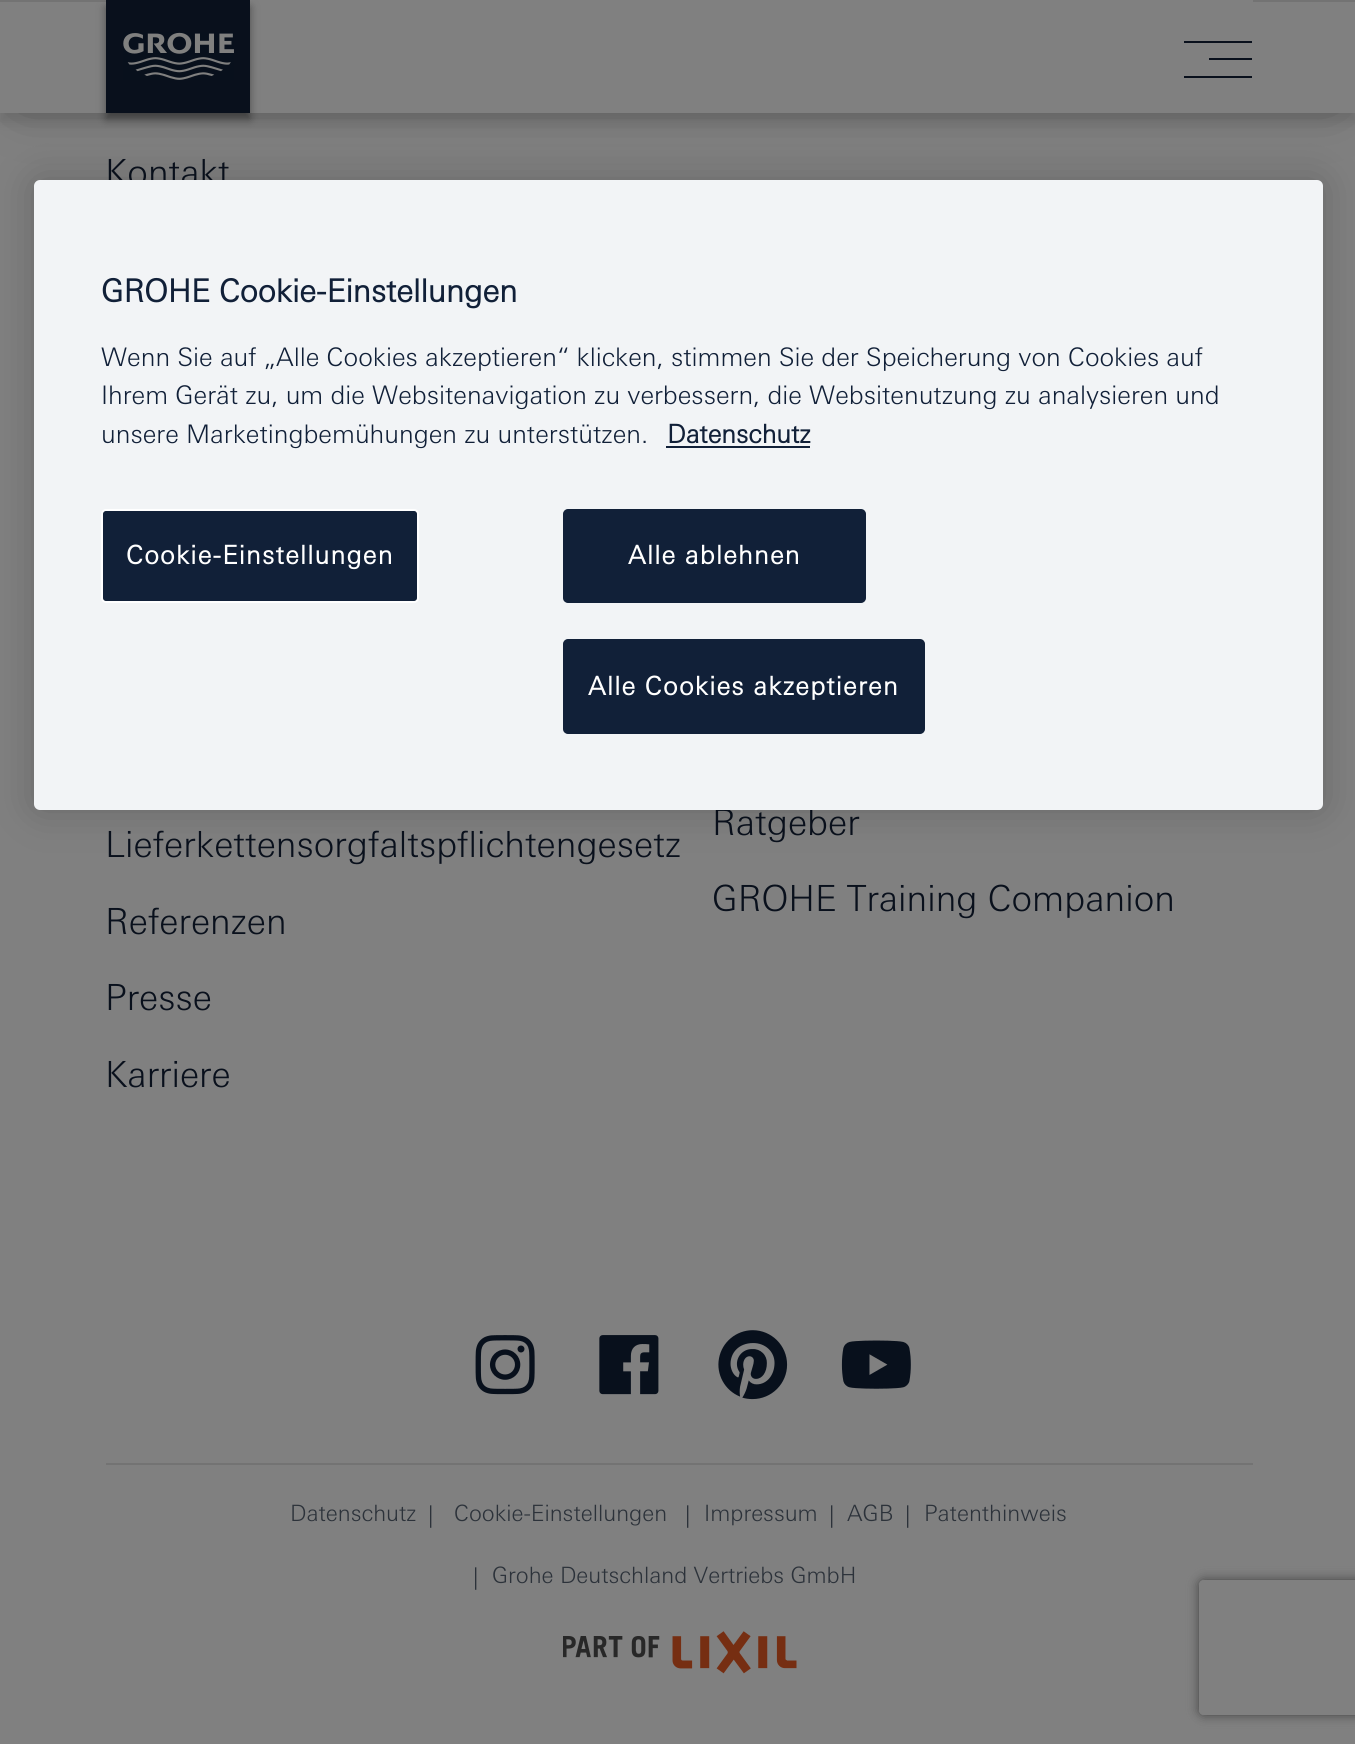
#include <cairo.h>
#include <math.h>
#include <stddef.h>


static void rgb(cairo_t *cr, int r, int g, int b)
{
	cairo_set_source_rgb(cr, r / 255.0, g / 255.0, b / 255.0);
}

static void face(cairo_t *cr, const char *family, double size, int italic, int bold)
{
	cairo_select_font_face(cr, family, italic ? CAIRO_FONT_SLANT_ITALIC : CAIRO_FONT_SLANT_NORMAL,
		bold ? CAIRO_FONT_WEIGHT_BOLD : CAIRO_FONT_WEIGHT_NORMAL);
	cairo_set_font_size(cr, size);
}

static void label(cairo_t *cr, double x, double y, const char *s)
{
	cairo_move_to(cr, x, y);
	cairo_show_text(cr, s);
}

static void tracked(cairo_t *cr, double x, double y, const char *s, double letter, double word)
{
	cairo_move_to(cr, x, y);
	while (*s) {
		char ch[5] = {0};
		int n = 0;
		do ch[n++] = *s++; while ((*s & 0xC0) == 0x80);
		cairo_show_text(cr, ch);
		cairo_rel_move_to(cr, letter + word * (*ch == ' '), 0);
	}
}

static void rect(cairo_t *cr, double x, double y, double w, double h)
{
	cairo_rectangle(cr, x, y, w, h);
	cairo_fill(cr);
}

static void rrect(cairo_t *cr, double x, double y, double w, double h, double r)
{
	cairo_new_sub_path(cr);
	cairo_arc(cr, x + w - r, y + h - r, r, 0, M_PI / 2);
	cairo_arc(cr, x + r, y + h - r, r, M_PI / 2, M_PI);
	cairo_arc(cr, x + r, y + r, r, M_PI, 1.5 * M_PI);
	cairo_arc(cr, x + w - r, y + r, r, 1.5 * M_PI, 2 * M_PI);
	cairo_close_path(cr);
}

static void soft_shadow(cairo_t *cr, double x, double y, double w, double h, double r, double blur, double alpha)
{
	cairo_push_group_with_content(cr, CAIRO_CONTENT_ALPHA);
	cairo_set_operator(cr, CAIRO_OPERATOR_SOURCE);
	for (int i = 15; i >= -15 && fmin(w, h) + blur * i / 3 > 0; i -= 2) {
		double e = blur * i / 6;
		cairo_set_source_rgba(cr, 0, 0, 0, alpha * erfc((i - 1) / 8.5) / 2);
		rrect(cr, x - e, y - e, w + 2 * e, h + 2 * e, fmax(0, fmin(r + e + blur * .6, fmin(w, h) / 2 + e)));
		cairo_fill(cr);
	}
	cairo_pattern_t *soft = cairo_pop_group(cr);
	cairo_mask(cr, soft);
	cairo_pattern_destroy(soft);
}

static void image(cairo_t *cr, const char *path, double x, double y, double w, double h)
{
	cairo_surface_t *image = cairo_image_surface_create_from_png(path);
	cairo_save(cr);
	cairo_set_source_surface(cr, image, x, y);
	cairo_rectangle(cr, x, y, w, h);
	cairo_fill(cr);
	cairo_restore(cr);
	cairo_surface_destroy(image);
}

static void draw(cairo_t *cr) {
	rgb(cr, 128, 128, 128);
	cairo_paint(cr);
	rgb(cr, 0, 0, 0);
	soft_shadow(cr, 23, 29, 1311, 68, 0, 27, 0.4);
	soft_shadow(cr, 0, 9, 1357, 113, 0, 5.5, 0.1);
	rgb(cr, 115, 115, 115);
	rect(cr, 0, 0, 1355, 2);
	rgb(cr, 128, 128, 128);
	rect(cr, 250, 0, 1003, 2);
	rect(cr, 0, 2, 1355, 111);
	rgb(cr, 0, 0, 0);
	soft_shadow(cr, 106, 7, 144, 112, 0, 4.5, 0.4);
	rgb(cr, 9, 16, 28);
	rect(cr, 106, 0, 144, 113);
	image(cr, "image0.png", 123, 32, 111, 48);
	cairo_save(cr);
	cairo_rectangle(cr, 1184, 41, 69, 38);
	cairo_clip(cr);
	cairo_new_path(cr);
	cairo_move_to(cr, 1184, 40);
	cairo_line_to(cr, 1252, 40);
	cairo_line_to(cr, 1252, 43);
	cairo_line_to(cr, 1184, 43);
	cairo_close_path(cr);
	cairo_move_to(cr, 1209, 58);
	cairo_line_to(cr, 1252, 58);
	cairo_line_to(cr, 1252, 60);
	cairo_line_to(cr, 1209, 60);
	cairo_close_path(cr);
	cairo_move_to(cr, 1184, 76);
	cairo_line_to(cr, 1252, 76);
	cairo_line_to(cr, 1252, 78);
	cairo_line_to(cr, 1184, 78);
	cairo_close_path(cr);
	cairo_fill(cr);
	cairo_restore(cr);
	face(cr, "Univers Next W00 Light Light", 36, 0, 0);
	label(cr, 105, 185, "Kontakt");
	label(cr, 105, 857, "Lieferkettensorgfaltspflichtengesetz");
	label(cr, 105, 934, "Referenzen");
	label(cr, 105, 1010, "Presse");
	label(cr, 105, 1087, "Karriere");
	label(cr, 712, 835, "Ratgeber");
	label(cr, 712, 911, "GROHE Training Companion");
	image(cr, "image1.png", 475, 1335, 60, 60);
	image(cr, "image2.png", 599, 1335, 60, 60);
	image(cr, "image3.png", 718, 1330, 70, 70);
	image(cr, "image4.png", 841, 1340, 70, 49);
	rgb(cr, 115, 115, 115);
	rect(cr, 106, 1463, 1147, 2);
	face(cr, "Univers Next W00 Light Light", 22.5, 0, 0);
	rgb(cr, 44, 50, 58);
	label(cr, 290, 1521, "Datenschutz");
	label(cr, 428, 1523, "|");
	label(cr, 454, 1521, "Cookie-Einstellungen");
	label(cr, 685, 1523, "|");
	label(cr, 704, 1521, "Impressum");
	label(cr, 829, 1523, "|");
	label(cr, 847, 1521, "AGB");
	label(cr, 905, 1523, "|");
	label(cr, 924, 1521, "Patenthinweis");
	label(cr, 473, 1585, "|");
	label(cr, 492, 1583, "Grohe Deutschland Vertriebs GmbH");
	image(cr, "image5.png", 563, 1631, 234, 43);
	rgb(cr, 0, 0, 0);
	soft_shadow(cr, 34, 180, 1289, 630, 6, 20, 0.2);
	rgb(cr, 242, 244, 246);
	rrect(cr, 34, 180, 1289, 630, 6);
	cairo_fill(cr);
	face(cr, "Univers Next W00 Light", 31.5, 0, 1);
	rgb(cr, 17, 32, 56);
	label(cr, 101, 302, "GROHE Cookie-Einstellungen");
	face(cr, "Univers Next W00 Light Light", 25.6, 0, 0);
	label(cr, 101, 366, "Wenn Sie auf „Alle Cookies akzeptieren“ klicken, stimmen Sie der Speicherung von Cookies auf");
	label(cr, 101, 404, "Ihrem Gerät zu, um die Websitenavigation zu verbessern, die Websitenutzung zu analysieren und");
	label(cr, 101, 443, "unsere Marketingbemühungen zu unterstützen.");
	face(cr, "Univers Next W00 Light", 25.6, 0, 1);
	label(cr, 667, 443, "Datenschutz");
	rect(cr, 666, 446, 144, 2);
	rrect(cr, 102, 510, 316, 92, 4);
	cairo_fill_preserve(cr);
	rgb(cr, 255, 255, 255);
	cairo_stroke(cr);
	tracked(cr, 126, 564, "Cookie-Einstellungen", 1.25, 0);
	rgb(cr, 17, 32, 56);
	rrect(cr, 564, 510, 301, 92, 4);
	cairo_fill_preserve(cr);
	cairo_stroke(cr);
	rgb(cr, 255, 255, 255);
	tracked(cr, 628, 564, "Alle ablehnen", 1.25, 0);
	rgb(cr, 17, 32, 56);
	rrect(cr, 564, 640, 360, 93, 4);
	cairo_fill_preserve(cr);
	cairo_stroke(cr);
	rgb(cr, 255, 255, 255);
	tracked(cr, 588, 695, "Alle Cookies akzeptieren", 1.25, 0);
	cairo_save(cr);
	cairo_set_fill_rule(cr, CAIRO_FILL_RULE_EVEN_ODD);
	cairo_new_path(cr);
	cairo_move_to(cr, 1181, 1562);
	cairo_line_to(cr, 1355, 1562);
	cairo_line_to(cr, 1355, 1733);
	cairo_line_to(cr, 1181, 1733);
	cairo_close_path(cr);
	cairo_move_to(cr, 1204, 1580);
	cairo_line_to(cr, 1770, 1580);
	cairo_curve_to(cr, 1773, 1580, 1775, 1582, 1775, 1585);
	cairo_line_to(cr, 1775, 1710);
	cairo_curve_to(cr, 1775, 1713, 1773, 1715, 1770, 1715);
	cairo_line_to(cr, 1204, 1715);
	cairo_curve_to(cr, 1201, 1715, 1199, 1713, 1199, 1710);
	cairo_line_to(cr, 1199, 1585);
	cairo_curve_to(cr, 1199, 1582, 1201, 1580, 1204, 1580);
	cairo_close_path(cr);
	cairo_clip(cr);
	rgb(cr, 64, 64, 64);
	soft_shadow(cr, 1199, 1580, 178, 135, 5, 5.5, 1);
	cairo_restore(cr);
}

int main(void) {
	cairo_surface_t *surface = cairo_image_surface_create(CAIRO_FORMAT_RGB24, 1355, 1744);
	cairo_t *cr = cairo_create(surface);
	cairo_font_options_t *options = cairo_font_options_create();
	cairo_font_options_set_hint_metrics(options, CAIRO_HINT_METRICS_OFF);
	cairo_font_options_set_hint_style(options, CAIRO_HINT_STYLE_NONE);
	cairo_set_font_options(cr, options);
	cairo_set_miter_limit(cr, 4);
	draw(cr);
	cairo_surface_write_to_png(surface, "render.png");
	cairo_font_options_destroy(options);
	cairo_destroy(cr);
	cairo_surface_destroy(surface);
	return 0;
}
